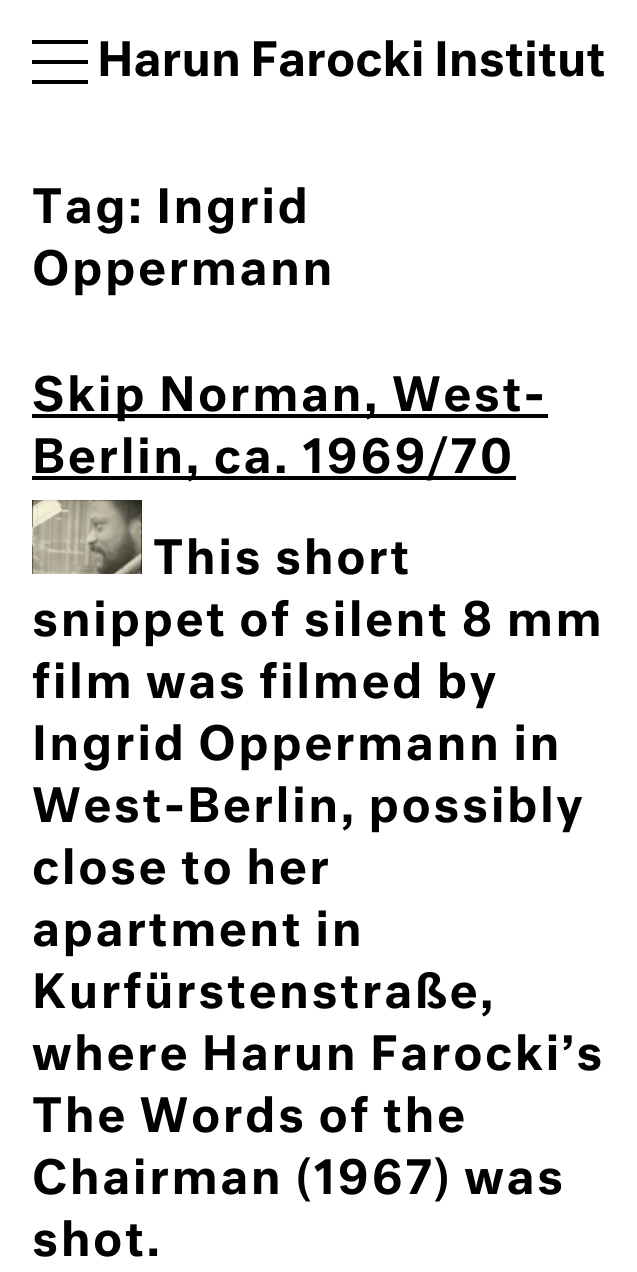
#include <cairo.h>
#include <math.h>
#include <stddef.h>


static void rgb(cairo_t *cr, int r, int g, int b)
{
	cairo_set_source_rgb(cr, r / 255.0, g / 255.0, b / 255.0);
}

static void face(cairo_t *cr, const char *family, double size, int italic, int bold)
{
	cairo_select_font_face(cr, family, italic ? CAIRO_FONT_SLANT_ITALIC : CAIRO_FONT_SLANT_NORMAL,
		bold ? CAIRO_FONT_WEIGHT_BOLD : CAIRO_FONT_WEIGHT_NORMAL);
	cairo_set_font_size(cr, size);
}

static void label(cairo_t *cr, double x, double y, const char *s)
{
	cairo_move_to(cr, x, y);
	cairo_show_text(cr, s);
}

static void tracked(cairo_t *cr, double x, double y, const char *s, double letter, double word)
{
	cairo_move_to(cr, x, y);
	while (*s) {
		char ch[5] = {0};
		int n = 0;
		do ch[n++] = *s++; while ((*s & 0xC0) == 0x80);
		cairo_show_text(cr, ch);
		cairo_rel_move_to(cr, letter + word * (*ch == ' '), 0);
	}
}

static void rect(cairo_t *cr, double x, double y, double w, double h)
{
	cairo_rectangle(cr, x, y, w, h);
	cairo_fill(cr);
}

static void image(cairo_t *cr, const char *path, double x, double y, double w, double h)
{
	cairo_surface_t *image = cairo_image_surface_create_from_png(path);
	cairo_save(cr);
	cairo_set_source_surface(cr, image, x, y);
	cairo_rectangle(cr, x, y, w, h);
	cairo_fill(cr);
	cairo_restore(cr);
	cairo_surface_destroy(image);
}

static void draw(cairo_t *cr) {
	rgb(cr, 255, 255, 255);
	cairo_paint(cr);
	rgb(cr, 0, 0, 0);
	rect(cr, 32, 40, 56, 4);
	rect(cr, 32, 60, 56, 4);
	rect(cr, 32, 80, 56, 4);
	face(cr, "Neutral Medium", 46, 0, 0);
	label(cr, 97, 76, "Harun Farocki Institut");
	tracked(cr, 32, 223, "Tag: Ingrid", 2.5, 0);
	tracked(cr, 32, 285, "Oppermann", 2.5, 0);
	rect(cr, 32, 414, 516, 4);
	tracked(cr, 32, 411, "Skip Norman, West-", 2.5, 0);
	rect(cr, 32, 476, 484, 4);
	tracked(cr, 32, 473, "Berlin, ca. 1969/70", 2.5, 0);
	image(cr, "image0.png", 32, 500, 110, 74);
	tracked(cr, 153, 574, "This short", 2.5, 0);
	tracked(cr, 32, 636, "snippet of silent 8 mm", 2.5, 0);
	tracked(cr, 32, 698, "film was filmed by", 2.5, 0);
	tracked(cr, 32, 760, "Ingrid Oppermann in", 2.5, 0);
	tracked(cr, 32, 822, "West-Berlin, possibly", 2.5, 0);
	tracked(cr, 32, 884, "close to her", 2.5, 0);
	tracked(cr, 32, 946, "apartment in", 2.5, 0);
	tracked(cr, 32, 1008, "Kurfürstenstraße,", 2.5, 0);
	tracked(cr, 32, 1070, "where Harun Farocki’s", 2.5, 0);
	tracked(cr, 32, 1132, "The Words of the", 2.5, 0);
	tracked(cr, 32, 1194, "Chairman (1967) was", 2.5, 0);
	tracked(cr, 32, 1256, "shot.", 2.5, 0);
}

int main(void) {
	cairo_surface_t *surface = cairo_image_surface_create(CAIRO_FORMAT_RGB24, 637, 1272);
	cairo_t *cr = cairo_create(surface);
	cairo_font_options_t *options = cairo_font_options_create();
	cairo_font_options_set_hint_metrics(options, CAIRO_HINT_METRICS_OFF);
	cairo_font_options_set_hint_style(options, CAIRO_HINT_STYLE_NONE);
	cairo_set_font_options(cr, options);
	cairo_set_miter_limit(cr, 4);
	draw(cr);
	cairo_surface_write_to_png(surface, "render.png");
	cairo_font_options_destroy(options);
	cairo_destroy(cr);
	cairo_surface_destroy(surface);
	return 0;
}
